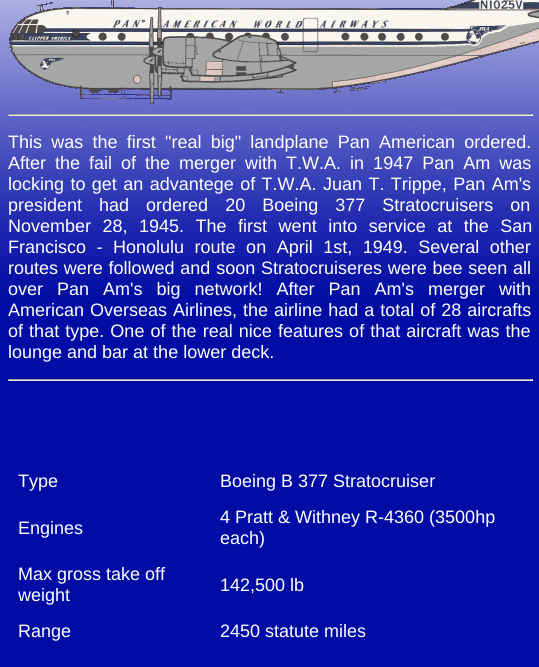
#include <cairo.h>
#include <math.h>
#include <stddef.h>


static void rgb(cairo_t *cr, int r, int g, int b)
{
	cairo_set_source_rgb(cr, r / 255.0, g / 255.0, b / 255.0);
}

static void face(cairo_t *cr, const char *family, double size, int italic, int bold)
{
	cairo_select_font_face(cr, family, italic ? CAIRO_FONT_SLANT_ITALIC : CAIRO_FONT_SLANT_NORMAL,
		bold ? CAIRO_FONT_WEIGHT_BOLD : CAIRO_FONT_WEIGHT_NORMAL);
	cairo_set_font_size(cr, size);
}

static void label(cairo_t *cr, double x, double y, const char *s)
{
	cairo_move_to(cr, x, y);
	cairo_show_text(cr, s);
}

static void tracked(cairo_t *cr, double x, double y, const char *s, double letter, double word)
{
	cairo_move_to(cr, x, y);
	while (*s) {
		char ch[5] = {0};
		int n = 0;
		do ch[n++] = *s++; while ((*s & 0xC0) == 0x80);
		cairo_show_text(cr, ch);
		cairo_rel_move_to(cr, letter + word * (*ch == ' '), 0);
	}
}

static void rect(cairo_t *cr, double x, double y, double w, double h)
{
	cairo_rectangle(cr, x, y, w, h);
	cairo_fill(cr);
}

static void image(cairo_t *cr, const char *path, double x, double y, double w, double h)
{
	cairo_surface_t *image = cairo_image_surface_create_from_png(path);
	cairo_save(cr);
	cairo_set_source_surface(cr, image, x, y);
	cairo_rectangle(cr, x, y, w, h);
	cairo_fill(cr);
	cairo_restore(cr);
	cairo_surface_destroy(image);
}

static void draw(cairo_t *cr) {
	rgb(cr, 255, 255, 255);
	cairo_paint(cr);
	image(cr, "image0.png", 0, 0, 539, 667);
	image(cr, "image1.png", 9, 0, 530, 104);
	rgb(cr, 159, 159, 159);
	rect(cr, 8, 114, 525, 1);
	rgb(cr, 238, 238, 238);
	rect(cr, 532, 114, 1, 2);
	rect(cr, 8, 115, 525, 1);
	rgb(cr, 159, 159, 159);
	rect(cr, 8, 114, 1, 2);
	face(cr, "Liberation Sans", 18, 0, 0);
	rgb(cr, 255, 255, 255);
	tracked(cr, 8, 148, "This was the first \"real big\" landplane Pan American ordered.", 0, 4.25);
	tracked(cr, 8, 169, "After the fail of the merger with T.W.A. in 1947 Pan Am was", 0, 4);
	tracked(cr, 8, 190, "locking to get an advantege of T.W.A. Juan T. Trippe, Pan Am's", 0, 1.4);
	tracked(cr, 8, 211, "president had ordered 20 Boeing 377 Stratocruisers on", 0, 12);
	tracked(cr, 8, 232, "November 28, 1945. The first went into service at the San", 0, 6.5);
	tracked(cr, 8, 253, "Francisco - Honolulu route on April 1st, 1949. Several other", 0, 5.5);
	tracked(cr, 8, 274, "routes were followed and soon Stratocruiseres were bee seen all", 0, 0.75);
	tracked(cr, 8, 295, "over Pan Am's big network! After Pan Am's merger with", 0, 9);
	tracked(cr, 8, 316, "American Overseas Airlines, the airline had a total of 28 aircrafts", 0, 1);
	tracked(cr, 8, 337, "of that type. One of the real nice features of that aircraft was the", 0, 1.1);
	label(cr, 8, 358, "lounge and bar at the lower deck.");
	rgb(cr, 159, 159, 159);
	rect(cr, 8, 379, 525, 1);
	rgb(cr, 238, 238, 238);
	rect(cr, 532, 379, 1, 2);
	rect(cr, 8, 380, 525, 1);
	rgb(cr, 159, 159, 159);
	rect(cr, 8, 379, 1, 2);
	rgb(cr, 255, 255, 255);
	label(cr, 18, 487, "Type");
	label(cr, 220, 487, "Boeing B 377 Stratocruiser");
	label(cr, 18, 534, "Engines");
	label(cr, 220, 523, "4 Pratt & Withney R-4360 (3500hp");
	label(cr, 220, 544, "each)");
	label(cr, 18, 580, "Max gross take off");
	label(cr, 18, 601, "weight");
	label(cr, 220, 591, "142,500 lb");
	label(cr, 18, 637, "Range");
	label(cr, 220, 637, "2450 statute miles");
}

int main(void) {
	cairo_surface_t *surface = cairo_image_surface_create(CAIRO_FORMAT_RGB24, 539, 667);
	cairo_t *cr = cairo_create(surface);
	cairo_font_options_t *options = cairo_font_options_create();
	cairo_font_options_set_hint_metrics(options, CAIRO_HINT_METRICS_OFF);
	cairo_font_options_set_hint_style(options, CAIRO_HINT_STYLE_NONE);
	cairo_set_font_options(cr, options);
	cairo_set_miter_limit(cr, 4);
	draw(cr);
	cairo_surface_write_to_png(surface, "render.png");
	cairo_font_options_destroy(options);
	cairo_destroy(cr);
	cairo_surface_destroy(surface);
	return 0;
}
